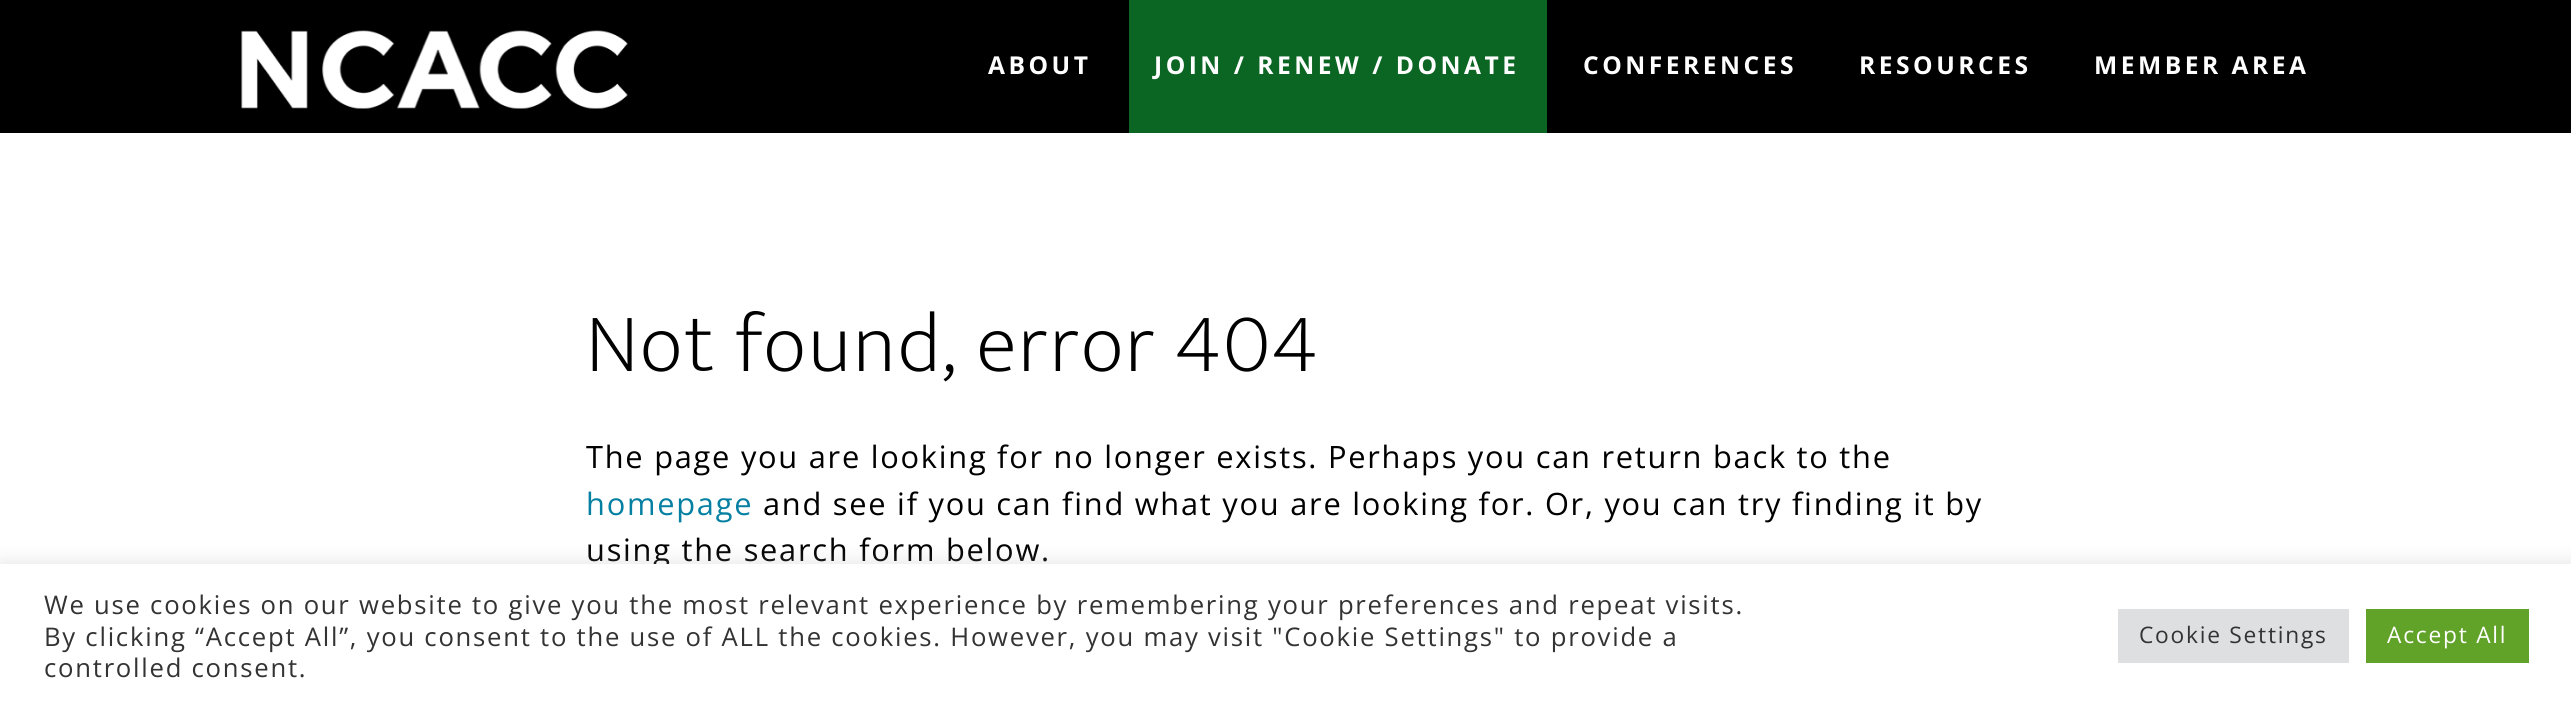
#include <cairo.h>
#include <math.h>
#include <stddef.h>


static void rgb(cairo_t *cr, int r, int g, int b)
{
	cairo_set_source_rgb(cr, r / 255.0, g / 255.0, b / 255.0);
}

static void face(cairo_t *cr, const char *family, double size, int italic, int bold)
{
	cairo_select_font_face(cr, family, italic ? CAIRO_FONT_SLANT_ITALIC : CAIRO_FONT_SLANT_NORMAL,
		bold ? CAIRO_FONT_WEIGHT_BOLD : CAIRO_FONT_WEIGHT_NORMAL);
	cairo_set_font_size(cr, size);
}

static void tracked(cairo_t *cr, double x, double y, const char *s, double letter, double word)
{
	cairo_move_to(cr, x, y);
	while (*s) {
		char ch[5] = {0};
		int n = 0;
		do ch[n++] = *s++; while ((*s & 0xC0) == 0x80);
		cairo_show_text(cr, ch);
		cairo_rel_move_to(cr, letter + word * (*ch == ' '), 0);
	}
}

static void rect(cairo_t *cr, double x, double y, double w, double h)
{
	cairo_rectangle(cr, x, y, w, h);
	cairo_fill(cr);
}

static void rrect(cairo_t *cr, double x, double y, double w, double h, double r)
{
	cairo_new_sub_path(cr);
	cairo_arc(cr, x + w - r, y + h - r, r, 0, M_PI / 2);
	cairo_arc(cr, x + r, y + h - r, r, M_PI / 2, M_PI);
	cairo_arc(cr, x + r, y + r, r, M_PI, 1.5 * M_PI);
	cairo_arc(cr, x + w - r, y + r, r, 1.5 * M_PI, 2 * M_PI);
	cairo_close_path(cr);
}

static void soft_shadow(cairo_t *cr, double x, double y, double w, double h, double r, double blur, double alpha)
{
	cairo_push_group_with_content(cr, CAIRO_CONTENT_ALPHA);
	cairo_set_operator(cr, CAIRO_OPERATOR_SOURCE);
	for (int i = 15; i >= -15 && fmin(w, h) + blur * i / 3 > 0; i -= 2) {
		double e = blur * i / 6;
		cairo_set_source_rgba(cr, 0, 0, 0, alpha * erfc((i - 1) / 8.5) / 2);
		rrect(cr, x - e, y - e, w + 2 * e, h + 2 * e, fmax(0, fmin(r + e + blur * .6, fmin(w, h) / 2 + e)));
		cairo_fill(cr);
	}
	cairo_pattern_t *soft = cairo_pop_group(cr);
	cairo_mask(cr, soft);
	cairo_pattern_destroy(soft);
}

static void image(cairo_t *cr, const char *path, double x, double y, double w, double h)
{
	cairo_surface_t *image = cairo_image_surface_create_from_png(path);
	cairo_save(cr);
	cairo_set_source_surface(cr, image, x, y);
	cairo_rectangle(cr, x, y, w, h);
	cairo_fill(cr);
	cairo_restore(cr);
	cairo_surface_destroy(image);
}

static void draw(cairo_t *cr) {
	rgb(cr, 255, 255, 255);
	cairo_paint(cr);
	rgb(cr, 0, 0, 0);
	rect(cr, 0, 0, 2571, 133);
	image(cr, "image0.png", 241, 30, 387, 79);
	face(cr, "Open Sans", 24.6, 0, 1);
	rgb(cr, 255, 255, 255);
	tracked(cr, 988, 74, "ABOUT", 3.5, 0);
	rgb(cr, 11, 102, 35);
	rect(cr, 1129, 0, 418, 133);
	rgb(cr, 255, 255, 255);
	tracked(cr, 1154, 74, "JOIN / RENEW / DONATE", 3.5, 0);
	tracked(cr, 1583, 74, "CONFERENCES", 3.5, 0);
	tracked(cr, 1859, 74, "RESOURCES", 3.5, 0);
	tracked(cr, 2094, 74, "MEMBER AREA", 3.5, 0);
	face(cr, "Mukta ExtraLight", 84, 0, 0);
	rgb(cr, 0, 0, 0);
	tracked(cr, 586, 371, "Not found, error 404", 1.75, 0);
	face(cr, "Open Sans", 30.8, 0, 0);
	tracked(cr, 586, 468, "The page you are looking for no longer exists. Perhaps you can return back to the", 1.75, 0);
	rgb(cr, 6, 128, 162);
	tracked(cr, 586, 515, "homepage", 1.75, 0);
	rgb(cr, 0, 0, 0);
	tracked(cr, 763, 515, "and see if you can find what you are looking for. Or, you can try finding it by", 1.75, 0);
	tracked(cr, 586, 561, "using the search form below.", 1.75, 0);
	rgb(cr, 172, 171, 171);
	soft_shadow(cr, 0, 562, 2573, 143, 0, 9, 0.3);
	rgb(cr, 255, 255, 255);
	rect(cr, 0, 564, 2571, 143);
	face(cr, "Open Sans", 25.67, 0, 0);
	rgb(cr, 51, 51, 51);
	tracked(cr, 44, 614, "We use cookies on our website to give you the most relevant experience by remembering your preferences and repeat visits.", 1.75, 0);
	tracked(cr, 44, 646, "By clicking “Accept All”, you consent to the use of ALL the cookies. However, you may visit \"Cookie Settings\" to provide a", 1.75, 0);
	tracked(cr, 44, 677, "controlled consent.", 1.75, 0);
	rgb(cr, 222, 223, 224);
	rect(cr, 2118, 609, 231, 54);
	face(cr, "Open Sans", 22.75, 0, 0);
	rgb(cr, 51, 51, 51);
	tracked(cr, 2139, 643, "Cookie Settings", 1.75, 0);
	rgb(cr, 97, 162, 41);
	rect(cr, 2366, 609, 163, 54);
	rgb(cr, 255, 255, 255);
	tracked(cr, 2387, 643, "Accept All", 1.75, 0);
}

int main(void) {
	cairo_surface_t *surface = cairo_image_surface_create(CAIRO_FORMAT_RGB24, 2571, 707);
	cairo_t *cr = cairo_create(surface);
	cairo_font_options_t *options = cairo_font_options_create();
	cairo_font_options_set_hint_metrics(options, CAIRO_HINT_METRICS_OFF);
	cairo_font_options_set_hint_style(options, CAIRO_HINT_STYLE_NONE);
	cairo_set_font_options(cr, options);
	cairo_set_miter_limit(cr, 4);
	draw(cr);
	cairo_surface_write_to_png(surface, "render.png");
	cairo_font_options_destroy(options);
	cairo_destroy(cr);
	cairo_surface_destroy(surface);
	return 0;
}
